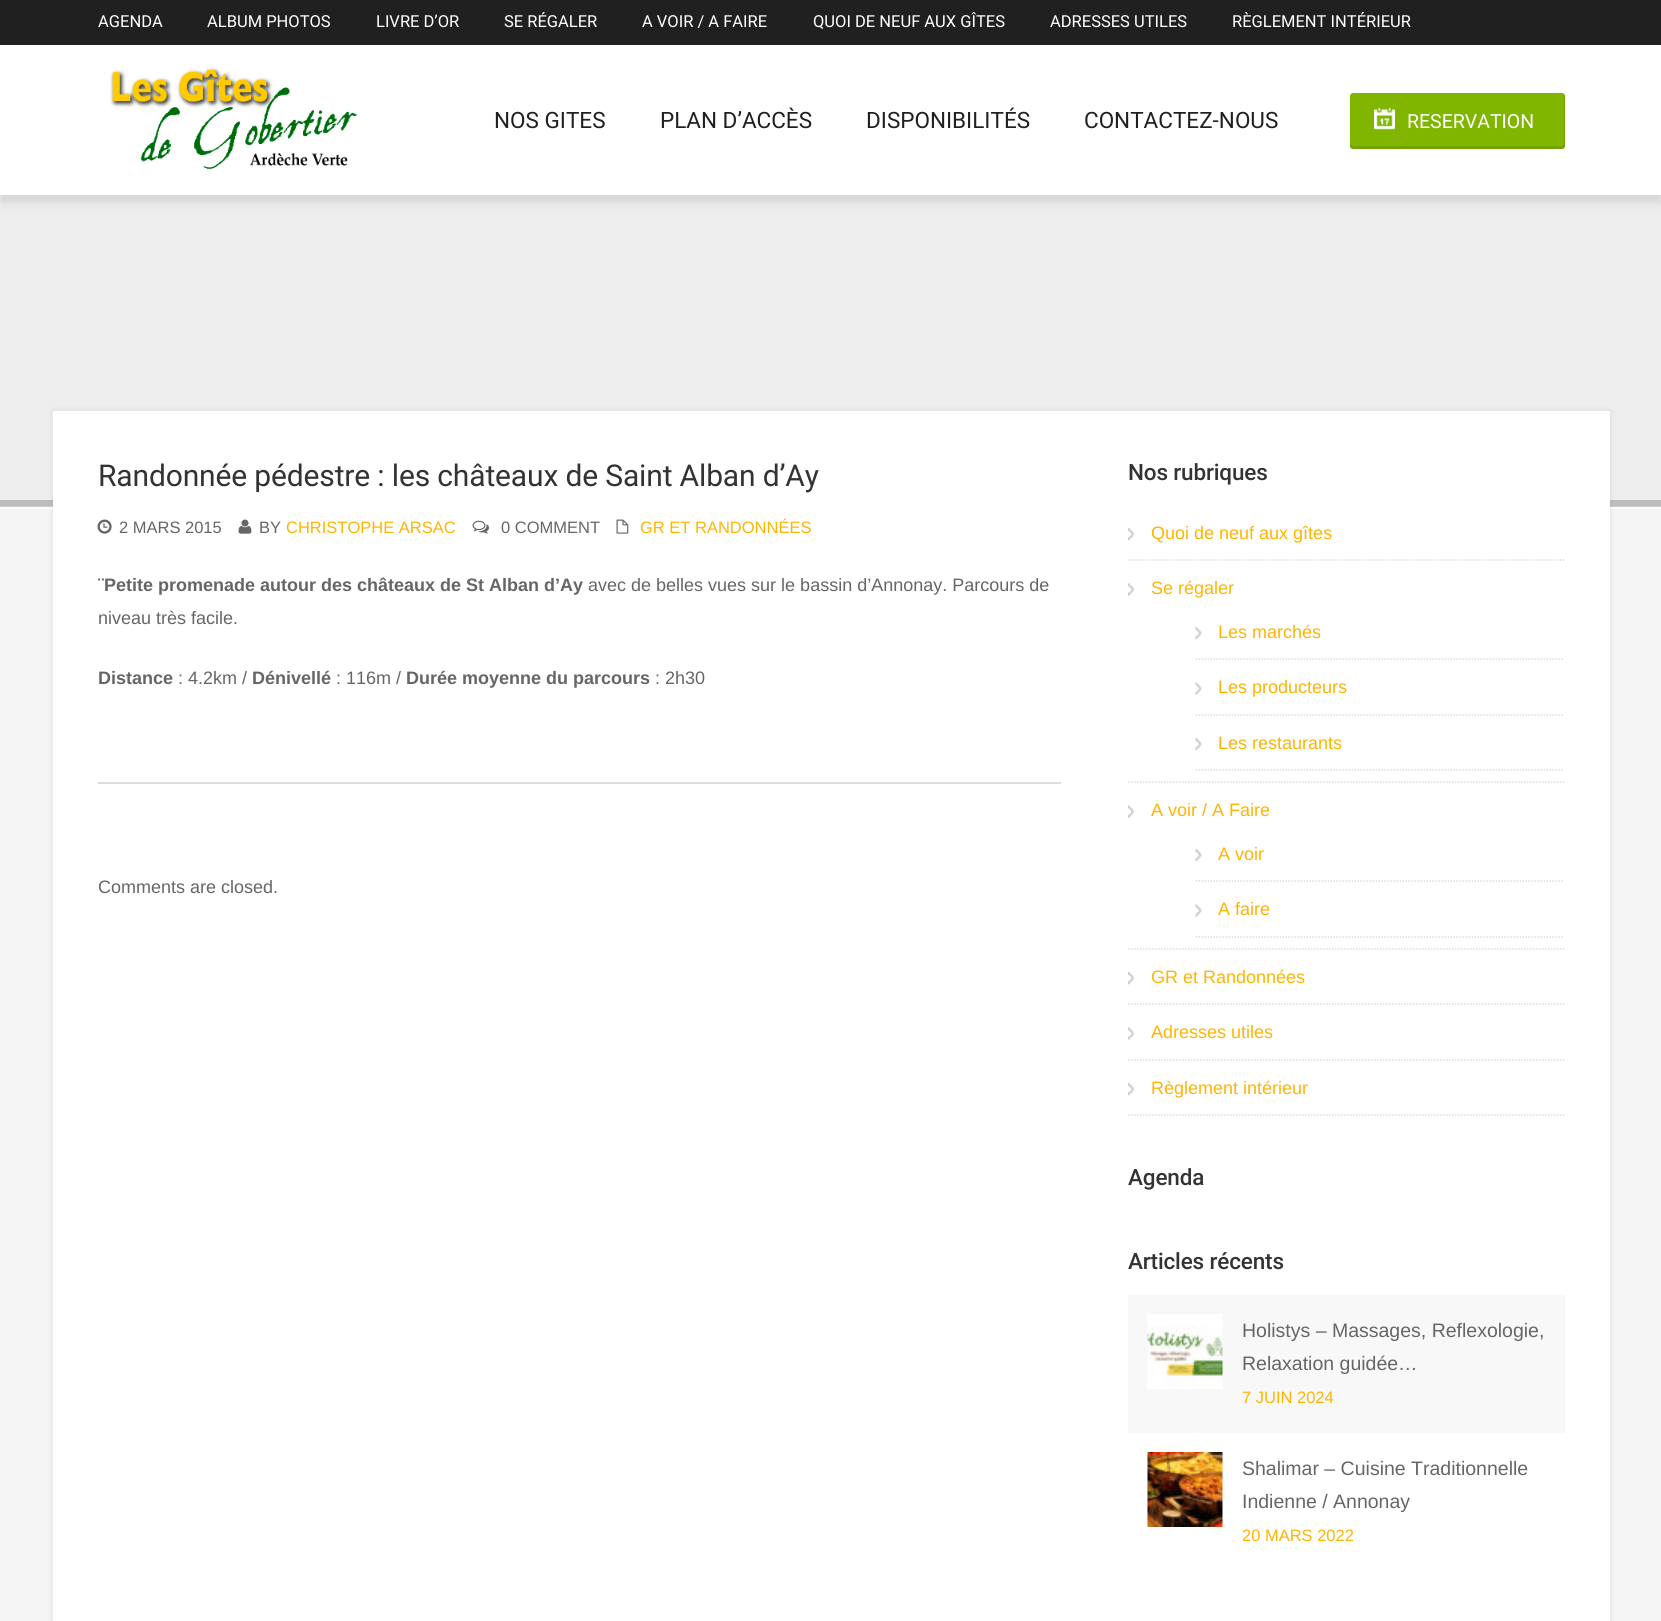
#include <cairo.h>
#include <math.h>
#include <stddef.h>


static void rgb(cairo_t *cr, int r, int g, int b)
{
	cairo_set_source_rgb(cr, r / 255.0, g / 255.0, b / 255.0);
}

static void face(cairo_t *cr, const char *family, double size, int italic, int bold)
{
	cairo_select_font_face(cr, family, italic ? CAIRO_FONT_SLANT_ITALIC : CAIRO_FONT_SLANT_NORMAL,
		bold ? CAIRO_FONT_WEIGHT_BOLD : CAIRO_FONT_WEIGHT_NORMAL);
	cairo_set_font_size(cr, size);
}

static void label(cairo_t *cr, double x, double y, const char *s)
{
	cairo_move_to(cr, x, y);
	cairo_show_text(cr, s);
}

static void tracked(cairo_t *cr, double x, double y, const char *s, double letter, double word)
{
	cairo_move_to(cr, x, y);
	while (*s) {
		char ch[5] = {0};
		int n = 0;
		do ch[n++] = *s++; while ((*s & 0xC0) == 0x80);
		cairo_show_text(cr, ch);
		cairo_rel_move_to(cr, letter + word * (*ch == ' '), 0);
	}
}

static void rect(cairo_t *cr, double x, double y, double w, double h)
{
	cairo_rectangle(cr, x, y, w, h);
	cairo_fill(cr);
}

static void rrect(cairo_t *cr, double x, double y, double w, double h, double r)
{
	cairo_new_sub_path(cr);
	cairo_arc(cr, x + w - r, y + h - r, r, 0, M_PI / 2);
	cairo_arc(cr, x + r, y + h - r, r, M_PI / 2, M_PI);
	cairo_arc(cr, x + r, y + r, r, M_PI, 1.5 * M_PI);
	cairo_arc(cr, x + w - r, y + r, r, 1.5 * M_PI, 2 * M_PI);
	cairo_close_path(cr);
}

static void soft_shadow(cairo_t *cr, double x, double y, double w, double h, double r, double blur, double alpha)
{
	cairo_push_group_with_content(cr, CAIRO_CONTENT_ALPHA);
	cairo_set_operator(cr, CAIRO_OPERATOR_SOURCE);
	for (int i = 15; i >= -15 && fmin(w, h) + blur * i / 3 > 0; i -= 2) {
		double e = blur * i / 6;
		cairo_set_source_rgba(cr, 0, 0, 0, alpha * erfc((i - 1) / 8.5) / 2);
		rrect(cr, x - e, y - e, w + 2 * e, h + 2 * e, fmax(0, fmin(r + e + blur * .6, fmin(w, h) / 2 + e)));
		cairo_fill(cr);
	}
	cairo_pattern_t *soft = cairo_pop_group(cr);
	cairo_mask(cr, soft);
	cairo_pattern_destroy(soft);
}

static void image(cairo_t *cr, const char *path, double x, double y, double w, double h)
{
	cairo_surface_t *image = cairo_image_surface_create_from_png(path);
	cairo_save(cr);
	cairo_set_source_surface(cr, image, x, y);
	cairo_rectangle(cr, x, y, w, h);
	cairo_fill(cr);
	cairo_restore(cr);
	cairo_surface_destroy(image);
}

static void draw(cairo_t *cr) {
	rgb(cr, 245, 245, 245);
	cairo_paint(cr);
	rgb(cr, 32, 32, 32);
	rect(cr, 0, 0, 1661, 45);
	face(cr, "Roboto", 16.5, 0, 0);
	rgb(cr, 255, 255, 255);
	label(cr, 98, 27, "AGENDA");
	label(cr, 207, 27, "ALBUM PHOTOS");
	label(cr, 376, 27, "LIVRE D’OR");
	label(cr, 504, 27, "SE RÉGALER");
	label(cr, 642, 27, "A VOIR / A FAIRE");
	label(cr, 813, 27, "QUOI DE NEUF AUX GÎTES");
	label(cr, 1050, 27, "ADRESSES UTILES");
	label(cr, 1232, 27, "RÈGLEMENT INTÉRIEUR");
	rgb(cr, 238, 238, 238);
	rect(cr, 0, 195, 1661, 305);
	rgb(cr, 0, 0, 0);
	soft_shadow(cr, 0, 53, 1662, 150, 0, 4, 0.1);
	rgb(cr, 255, 255, 255);
	rect(cr, 0, 45, 1661, 150);
	image(cr, "image0.png", 110, 67, 247, 103);
	face(cr, "Roboto", 22.5, 0, 0);
	rgb(cr, 32, 32, 32);
	label(cr, 494, 128, "NOS GITES");
	label(cr, 660, 128, "PLAN D’ACCÈS");
	label(cr, 866, 128, "DISPONIBILITÉS");
	label(cr, 1084, 128, "CONTACTEZ-NOUS");
	rgb(cr, 128, 181, 0);
	rrect(cr, 1350, 93, 215, 56, 3);
	cairo_fill(cr);
	image(cr, "image1.png", 1374, 108, 21, 22);
	cairo_set_source_rgba(cr, 0, 0, 0, 0.1);
	cairo_new_path(cr);
	cairo_move_to(cr, 1350, 142);
	cairo_line_to(cr, 1350, 146);
	cairo_curve_to(cr, 1350, 148, 1351, 149, 1353, 149);
	cairo_line_to(cr, 1562, 149);
	cairo_curve_to(cr, 1564, 149, 1565, 148, 1565, 146);
	cairo_line_to(cr, 1565, 96);
	cairo_curve_to(cr, 1565, 95, 1565, 94, 1564, 94);
	cairo_line_to(cr, 1564, 142);
	cairo_curve_to(cr, 1564, 144, 1563, 146, 1562, 146);
	cairo_line_to(cr, 1353, 146);
	cairo_curve_to(cr, 1351, 146, 1350, 144, 1350, 142);
	cairo_close_path(cr);
	cairo_fill(cr);
	face(cr, "Roboto", 19.5, 0, 0);
	rgb(cr, 255, 255, 255);
	label(cr, 1407, 128, "RESERVATION");
	rgb(cr, 190, 190, 190);
	rect(cr, 0, 500, 1661, 6);
	rgb(cr, 255, 255, 255);
	rect(cr, 0, 507, 1661, 2);
	rgb(cr, 204, 204, 204);
	rect(cr, 0, 506, 1661, 1);
	rgb(cr, 0, 0, 0);
	soft_shadow(cr, 53, 411, 1557, 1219, 0, 3, 0.1);
	rgb(cr, 255, 255, 255);
	rect(cr, 53, 411, 1557, 1210);
	face(cr, "Roboto", 30, 0, 0);
	rgb(cr, 51, 51, 51);
	tracked(cr, 98, 486, "Randonnée pédestre : les châteaux de Saint Alban d’Ay", -0.15, 0);
	image(cr, "image2.png", 97, 519, 15, 15);
	face(cr, "Liberation Sans", 16.5, 0, 0);
	rgb(cr, 102, 102, 102);
	label(cr, 119, 533, "2 MARS 2015");
	image(cr, "image3.png", 238, 519, 14, 15);
	label(cr, 259, 533, "BY");
	rgb(cr, 255, 180, 0);
	label(cr, 286, 533, "CHRISTOPHE ARSAC");
	image(cr, "image4.png", 472, 520, 17, 14);
	rgb(cr, 102, 102, 102);
	label(cr, 501, 533, "0 COMMENT");
	image(cr, "image5.png", 616, 519, 13, 15);
	rgb(cr, 255, 180, 0);
	label(cr, 640, 533, "GR ET RANDONNÉES");
	face(cr, "Liberation Sans", 18, 0, 1);
	rgb(cr, 102, 102, 102);
	label(cr, 98, 591, "¨Petite promenade autour des châteaux de St Alban d’Ay");
	face(cr, "Liberation Sans", 18, 0, 0);
	label(cr, 588, 591, "avec de belles vues sur le bassin d’Annonay. Parcours de");
	label(cr, 98, 624, "niveau très facile.");
	face(cr, "Liberation Sans", 18, 0, 1);
	label(cr, 98, 684, "Distance");
	face(cr, "Liberation Sans", 18, 0, 0);
	label(cr, 178, 684, ": 4.2km /");
	face(cr, "Liberation Sans", 18, 0, 1);
	label(cr, 252, 684, "Dénivellé");
	face(cr, "Liberation Sans", 18, 0, 0);
	label(cr, 336, 684, ": 116m /");
	face(cr, "Liberation Sans", 18, 0, 1);
	label(cr, 406, 684, "Durée moyenne du parcours");
	face(cr, "Liberation Sans", 18, 0, 0);
	label(cr, 655, 684, ": 2h30");
	rgb(cr, 221, 221, 221);
	rect(cr, 98, 782, 963, 2);
	rgb(cr, 102, 102, 102);
	label(cr, 98, 893, "Comments are closed.");
	face(cr, "Roboto Medium", 22.5, 0, 0);
	rgb(cr, 51, 51, 51);
	tracked(cr, 1128, 480, "Nos rubriques", -0.15, 0);
	image(cr, "image6.png", 1128, 527, 6, 14);
	cairo_new_path(cr);
	cairo_move_to(cr, 1128, 560);
	cairo_line_to(cr, 1564.5, 560);
	rgb(cr, 221, 221, 221);
	cairo_set_line_width(cr, 1.5);
	cairo_set_dash(cr, (double[]){1.5, 1.5}, 2, 0);
	cairo_stroke(cr);
	face(cr, "Liberation Sans", 18, 0, 0);
	rgb(cr, 255, 180, 0);
	label(cr, 1151, 539, "Quoi de neuf aux gîtes");
	image(cr, "image7.png", 1128, 583, 6, 14);
	cairo_new_path(cr);
	cairo_move_to(cr, 1128, 782);
	cairo_line_to(cr, 1564.5, 782);
	rgb(cr, 221, 221, 221);
	cairo_stroke(cr);
	rgb(cr, 255, 180, 0);
	label(cr, 1151, 594, "Se régaler");
	image(cr, "image8.png", 1195, 626, 7, 14);
	cairo_new_path(cr);
	cairo_move_to(cr, 1195.5, 659);
	cairo_line_to(cr, 1564.5, 659);
	rgb(cr, 221, 221, 221);
	cairo_stroke(cr);
	rgb(cr, 255, 180, 0);
	label(cr, 1218, 638, "Les marchés");
	image(cr, "image9.png", 1195, 682, 7, 13);
	cairo_new_path(cr);
	cairo_move_to(cr, 1195.5, 715);
	cairo_line_to(cr, 1564.5, 715);
	rgb(cr, 221, 221, 221);
	cairo_stroke(cr);
	rgb(cr, 255, 180, 0);
	label(cr, 1218, 693, "Les producteurs");
	image(cr, "image8.png", 1195, 737, 7, 14);
	cairo_new_path(cr);
	cairo_move_to(cr, 1195.5, 770);
	cairo_line_to(cr, 1564.5, 770);
	rgb(cr, 221, 221, 221);
	cairo_stroke(cr);
	rgb(cr, 255, 180, 0);
	label(cr, 1218, 749, "Les restaurants");
	image(cr, "image7.png", 1128, 805, 6, 14);
	cairo_new_path(cr);
	cairo_move_to(cr, 1128, 949);
	cairo_line_to(cr, 1564.5, 949);
	rgb(cr, 221, 221, 221);
	cairo_stroke(cr);
	rgb(cr, 255, 180, 0);
	label(cr, 1151, 816, "A voir / A Faire");
	image(cr, "image8.png", 1195, 848, 7, 14);
	cairo_new_path(cr);
	cairo_move_to(cr, 1195.5, 881);
	cairo_line_to(cr, 1564.5, 881);
	rgb(cr, 221, 221, 221);
	cairo_stroke(cr);
	rgb(cr, 255, 180, 0);
	label(cr, 1218, 860, "A voir");
	image(cr, "image9.png", 1195, 904, 7, 13);
	cairo_new_path(cr);
	cairo_move_to(cr, 1195.5, 937);
	cairo_line_to(cr, 1564.5, 937);
	rgb(cr, 221, 221, 221);
	cairo_stroke(cr);
	rgb(cr, 255, 180, 0);
	label(cr, 1218, 915, "A faire");
	image(cr, "image6.png", 1128, 971, 6, 14);
	cairo_new_path(cr);
	cairo_move_to(cr, 1128, 1004);
	cairo_line_to(cr, 1564.5, 1004);
	rgb(cr, 221, 221, 221);
	cairo_stroke(cr);
	rgb(cr, 255, 180, 0);
	label(cr, 1151, 983, "GR et Randonnées");
	image(cr, "image7.png", 1128, 1027, 6, 14);
	cairo_new_path(cr);
	cairo_move_to(cr, 1128, 1060);
	cairo_line_to(cr, 1564.5, 1060);
	rgb(cr, 221, 221, 221);
	cairo_stroke(cr);
	rgb(cr, 255, 180, 0);
	label(cr, 1151, 1038, "Adresses utiles");
	image(cr, "image6.png", 1128, 1082, 6, 14);
	cairo_new_path(cr);
	cairo_move_to(cr, 1128, 1115);
	cairo_line_to(cr, 1564.5, 1115);
	rgb(cr, 221, 221, 221);
	cairo_stroke(cr);
	rgb(cr, 255, 180, 0);
	label(cr, 1151, 1094, "Règlement intérieur");
	face(cr, "Roboto Medium", 22.5, 0, 0);
	rgb(cr, 51, 51, 51);
	tracked(cr, 1128, 1185, "Agenda", -0.15, 0);
	tracked(cr, 1128, 1269, "Articles récents", -0.15, 0);
	rgb(cr, 248, 248, 248);
	rect(cr, 1128, 1295, 437, 138);
	image(cr, "image10.png", 1147, 1314, 76, 75);
	face(cr, "Liberation Sans", 19.5, 0, 0);
	rgb(cr, 102, 102, 102);
	label(cr, 1242, 1337, "Holistys – Massages, Reflexologie,");
	label(cr, 1242, 1370, "Relaxation guidée…");
	face(cr, "Liberation Sans", 16.5, 0, 0);
	rgb(cr, 255, 180, 0);
	label(cr, 1242, 1403, "7 JUIN 2024");
	image(cr, "image11.png", 1147, 1452, 76, 75);
	face(cr, "Liberation Sans", 19.5, 0, 0);
	rgb(cr, 102, 102, 102);
	label(cr, 1242, 1475, "Shalimar – Cuisine Traditionnelle");
	label(cr, 1242, 1508, "Indienne / Annonay");
	face(cr, "Liberation Sans", 16.5, 0, 0);
	rgb(cr, 255, 180, 0);
	label(cr, 1242, 1541, "20 MARS 2022");
}

int main(void) {
	cairo_surface_t *surface = cairo_image_surface_create(CAIRO_FORMAT_RGB24, 1661, 1621);
	cairo_t *cr = cairo_create(surface);
	cairo_font_options_t *options = cairo_font_options_create();
	cairo_font_options_set_hint_metrics(options, CAIRO_HINT_METRICS_OFF);
	cairo_font_options_set_hint_style(options, CAIRO_HINT_STYLE_NONE);
	cairo_set_font_options(cr, options);
	cairo_set_miter_limit(cr, 4);
	draw(cr);
	cairo_surface_write_to_png(surface, "render.png");
	cairo_font_options_destroy(options);
	cairo_destroy(cr);
	cairo_surface_destroy(surface);
	return 0;
}
